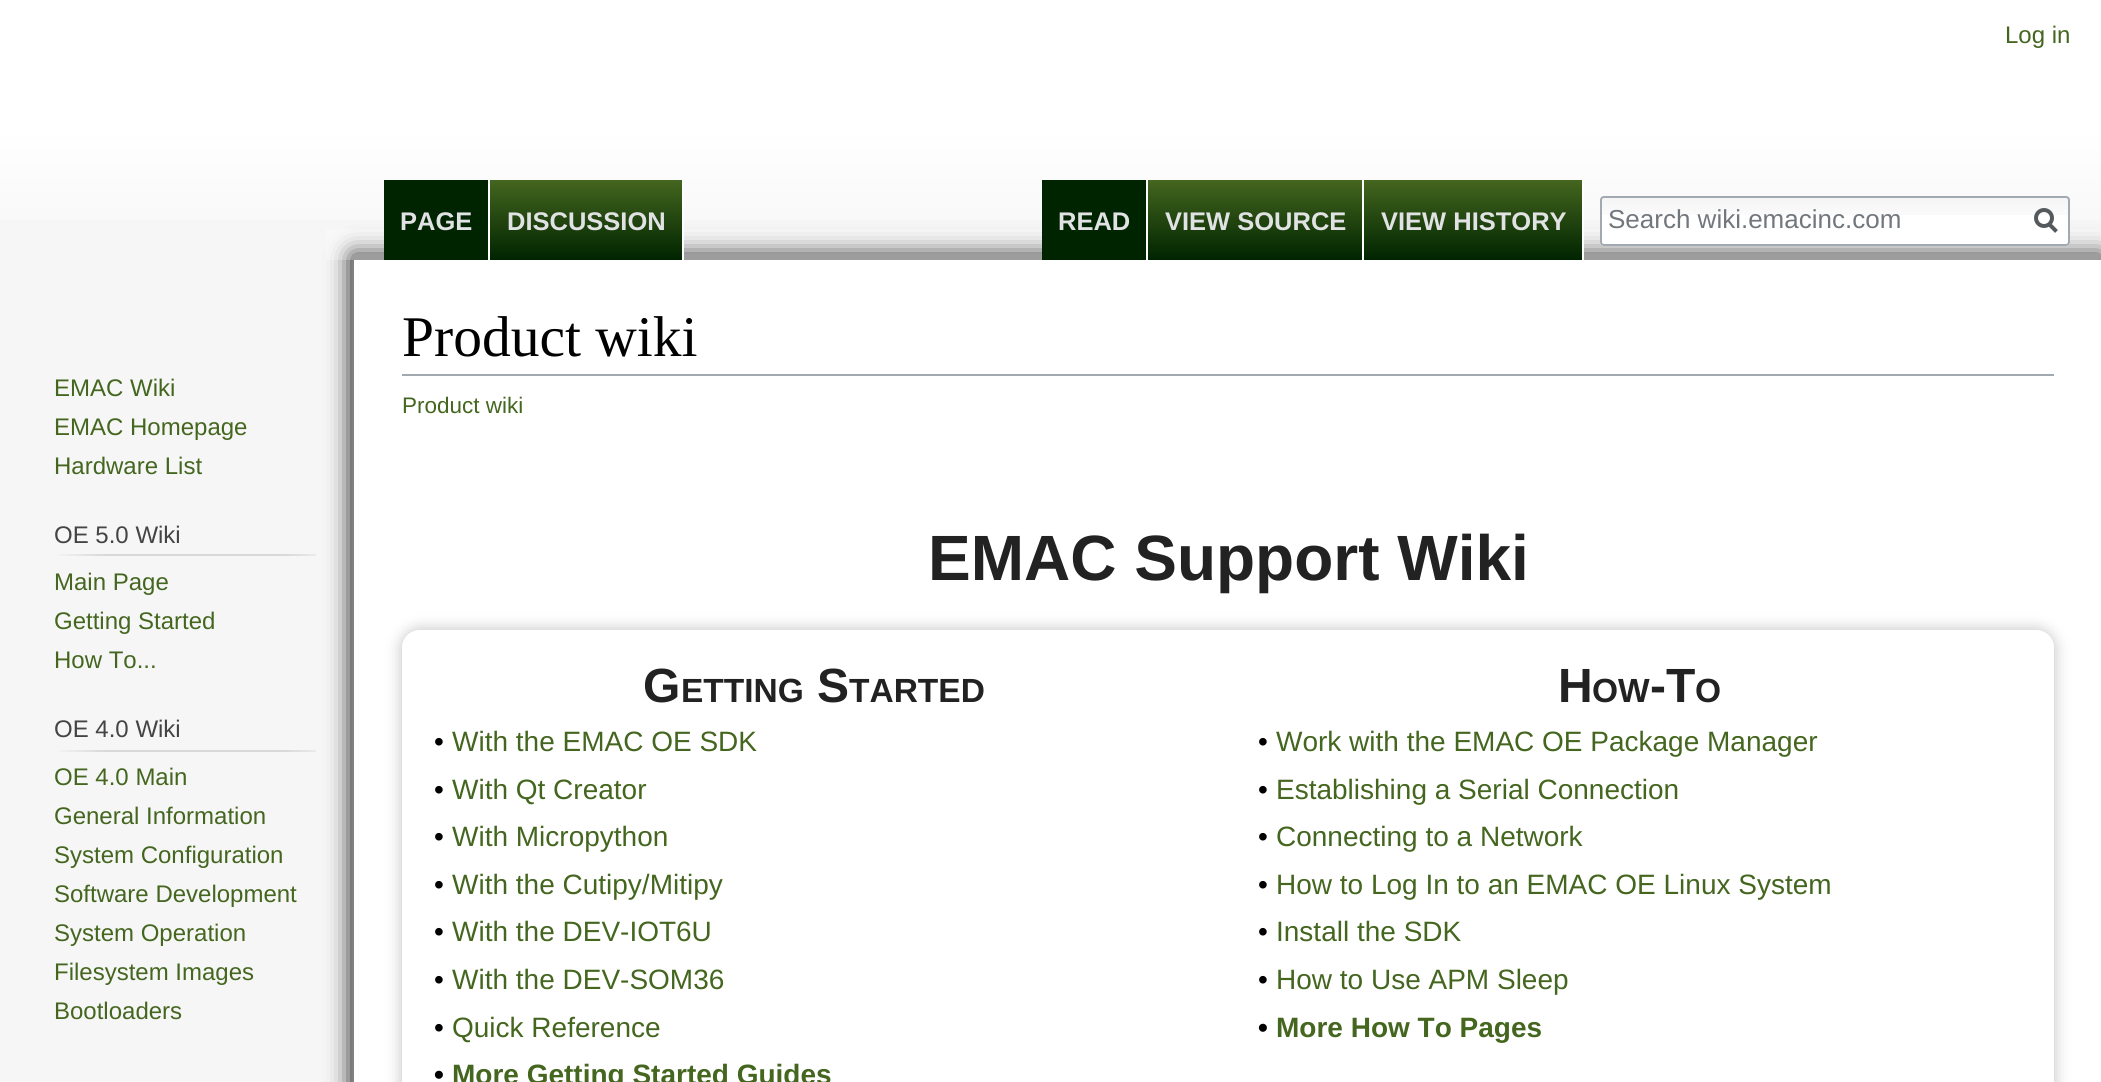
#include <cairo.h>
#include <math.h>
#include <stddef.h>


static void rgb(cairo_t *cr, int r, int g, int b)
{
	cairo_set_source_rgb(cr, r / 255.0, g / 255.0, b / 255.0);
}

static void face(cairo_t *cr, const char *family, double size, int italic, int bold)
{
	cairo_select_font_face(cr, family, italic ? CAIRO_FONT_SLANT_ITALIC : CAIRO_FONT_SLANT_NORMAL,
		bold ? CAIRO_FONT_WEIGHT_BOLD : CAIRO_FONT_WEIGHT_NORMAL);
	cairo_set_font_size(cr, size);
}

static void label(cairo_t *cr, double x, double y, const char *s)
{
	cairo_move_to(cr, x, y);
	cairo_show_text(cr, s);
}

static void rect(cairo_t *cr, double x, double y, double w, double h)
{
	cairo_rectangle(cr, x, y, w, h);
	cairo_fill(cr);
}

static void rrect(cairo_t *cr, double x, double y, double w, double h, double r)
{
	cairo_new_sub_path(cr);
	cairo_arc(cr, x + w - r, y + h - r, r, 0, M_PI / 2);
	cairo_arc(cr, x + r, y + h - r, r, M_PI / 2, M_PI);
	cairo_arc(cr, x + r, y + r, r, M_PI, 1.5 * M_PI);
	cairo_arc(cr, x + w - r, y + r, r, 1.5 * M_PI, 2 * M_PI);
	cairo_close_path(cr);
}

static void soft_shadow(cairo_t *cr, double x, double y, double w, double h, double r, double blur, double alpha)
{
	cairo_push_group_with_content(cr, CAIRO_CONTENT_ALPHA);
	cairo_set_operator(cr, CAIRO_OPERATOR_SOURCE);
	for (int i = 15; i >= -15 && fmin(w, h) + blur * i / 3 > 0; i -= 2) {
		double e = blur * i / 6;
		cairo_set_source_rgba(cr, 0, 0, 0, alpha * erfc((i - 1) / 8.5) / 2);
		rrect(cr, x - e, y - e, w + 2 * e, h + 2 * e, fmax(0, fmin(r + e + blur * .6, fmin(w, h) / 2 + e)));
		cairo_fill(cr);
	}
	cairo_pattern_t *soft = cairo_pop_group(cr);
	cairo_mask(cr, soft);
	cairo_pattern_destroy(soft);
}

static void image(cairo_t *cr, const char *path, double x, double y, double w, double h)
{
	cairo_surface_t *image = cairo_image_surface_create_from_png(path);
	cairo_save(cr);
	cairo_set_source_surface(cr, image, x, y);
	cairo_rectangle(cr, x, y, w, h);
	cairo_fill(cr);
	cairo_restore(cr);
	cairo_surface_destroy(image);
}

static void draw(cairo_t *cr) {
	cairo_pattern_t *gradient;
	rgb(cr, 246, 246, 246);
	cairo_paint(cr);
	gradient = cairo_pattern_create_linear(1051, 0, 1051, 256);
	cairo_pattern_add_color_stop_rgba(gradient, 0.5, 1, 1, 1, 1);
	cairo_pattern_add_color_stop_rgba(gradient, 1, 0.965, 0.965, 0.965, 1);
	cairo_set_source(cr, gradient);
	cairo_pattern_destroy(gradient);
	rect(cr, 0, 0, 2101, 220);
	rgb(cr, 0, 0, 0);
	soft_shadow(cr, 352, 254, 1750, 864, 0, 12, 1);
	rgb(cr, 128, 128, 128);
	rect(cr, 352, 254, 1749, 6);
	rect(cr, 352, 254, 2, 828);
	cairo_set_source_rgba(cr, 1, 1, 1, 0.23);
	rect(cr, 326, 229, 1775, 31);
	face(cr, "Liberation Sans", 24, 0, 0);
	rgb(cr, 68, 102, 31);
	label(cr, 2005, 43, "Log in");
	rgb(cr, 0, 36, 0);
	rect(cr, 384, 180, 104, 80);
	rgb(cr, 255, 255, 255);
	rect(cr, 488, 180, 2, 80);
	face(cr, "Liberation Sans", 25.5, 0, 1);
	rgb(cr, 225, 226, 227);
	label(cr, 400, 230, "PAGE");
	gradient = cairo_pattern_create_linear(586, 180, 586, 260);
	cairo_pattern_add_color_stop_rgba(gradient, 0, 0.267, 0.4, 0.122, 1);
	cairo_pattern_add_color_stop_rgba(gradient, 1, 0, 0.141, 0, 1);
	cairo_set_source(cr, gradient);
	cairo_pattern_destroy(gradient);
	rect(cr, 490, 180, 192, 80);
	rgb(cr, 255, 255, 255);
	rect(cr, 682, 180, 2, 80);
	rgb(cr, 225, 226, 227);
	label(cr, 507, 230, "DISCUSSION");
	rgb(cr, 0, 36, 0);
	rect(cr, 1042, 180, 104, 80);
	rgb(cr, 255, 255, 255);
	rect(cr, 1146, 180, 2, 80);
	rgb(cr, 225, 226, 227);
	label(cr, 1058, 230, "READ");
	gradient = cairo_pattern_create_linear(1255, 180, 1255, 260);
	cairo_pattern_add_color_stop_rgba(gradient, 0, 0.267, 0.4, 0.122, 1);
	cairo_pattern_add_color_stop_rgba(gradient, 1, 0, 0.141, 0, 1);
	cairo_set_source(cr, gradient);
	cairo_pattern_destroy(gradient);
	rect(cr, 1148, 180, 214, 80);
	rgb(cr, 255, 255, 255);
	rect(cr, 1362, 180, 2, 80);
	rgb(cr, 225, 226, 227);
	label(cr, 1165, 230, "VIEW SOURCE");
	gradient = cairo_pattern_create_linear(1473, 180, 1473, 260);
	cairo_pattern_add_color_stop_rgba(gradient, 0, 0.267, 0.4, 0.122, 1);
	cairo_pattern_add_color_stop_rgba(gradient, 1, 0, 0.141, 0, 1);
	cairo_set_source(cr, gradient);
	cairo_pattern_destroy(gradient);
	rect(cr, 1364, 180, 218, 80);
	rgb(cr, 255, 255, 255);
	rect(cr, 1582, 180, 2, 80);
	rgb(cr, 225, 226, 227);
	label(cr, 1381, 230, "VIEW HISTORY");
	rgb(cr, 255, 255, 255);
	rrect(cr, 1600, 196, 470, 50, 4);
	cairo_fill(cr);
	image(cr, "image0.png", 1600, 198, 470, 17);
	rrect(cr, 1601, 197, 468, 48, 3);
	rgb(cr, 162, 169, 177);
	cairo_stroke(cr);
	face(cr, "Liberation Sans", 26, 0, 0);
	rgb(cr, 114, 119, 125);
	label(cr, 1608, 228, "Search wiki.emacinc.com");
	cairo_new_path(cr);
	cairo_move_to(cr, 2056.5, 231.5);
	cairo_line_to(cr, 2048.5, 223.5);
	rgb(cr, 84, 89, 93);
	cairo_set_line_width(cr, 4);
	cairo_stroke(cr);
	cairo_arc(cr, 2044, 218, 8, 0, 2 * M_PI);
	cairo_stroke(cr);
	face(cr, "Liberation Sans", 24, 0, 0);
	rgb(cr, 68, 102, 31);
	label(cr, 54, 396, "EMAC Wiki");
	label(cr, 54, 435, "EMAC Homepage");
	label(cr, 54, 474, "Hardware List");
	rgb(cr, 68, 68, 68);
	label(cr, 54, 543, "OE 5.0 Wiki");
	image(cr, "image1.png", 59, 554, 257, 2);
	rgb(cr, 68, 102, 31);
	label(cr, 54, 590, "Main Page");
	label(cr, 54, 629, "Getting Started");
	label(cr, 54, 668, "How To...");
	rgb(cr, 68, 68, 68);
	label(cr, 54, 737, "OE 4.0 Wiki");
	image(cr, "image1.png", 59, 750, 257, 2);
	rgb(cr, 68, 102, 31);
	label(cr, 54, 785, "OE 4.0 Main");
	label(cr, 54, 824, "General Information");
	label(cr, 54, 863, "System Configuration");
	label(cr, 54, 902, "Software Development");
	label(cr, 54, 941, "System Operation");
	label(cr, 54, 980, "Filesystem Images");
	label(cr, 54, 1019, "Bootloaders");
	rgb(cr, 255, 255, 255);
	rect(cr, 354, 260, 1747, 822);
	rgb(cr, 162, 169, 177);
	rect(cr, 402, 374, 1652, 2);
	face(cr, "Liberation Serif", 57.5, 0, 0);
	rgb(cr, 0, 0, 0);
	label(cr, 402, 356, "Product wiki");
	face(cr, "Liberation Sans", 22.5, 0, 0);
	rgb(cr, 68, 102, 31);
	label(cr, 402, 413, "Product wiki");
	face(cr, "Liberation Sans", 64, 0, 1);
	rgb(cr, 34, 34, 34);
	label(cr, 928, 580, "EMAC Support Wiki");
	cairo_save(cr);
	cairo_set_fill_rule(cr, CAIRO_FILL_RULE_EVEN_ODD);
	cairo_new_path(cr);
	cairo_move_to(cr, 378, 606);
	cairo_line_to(cr, 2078, 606);
	cairo_line_to(cr, 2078, 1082);
	cairo_line_to(cr, 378, 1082);
	cairo_close_path(cr);
	cairo_move_to(cr, 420, 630);
	cairo_line_to(cr, 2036, 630);
	cairo_curve_to(cr, 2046, 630, 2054, 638, 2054, 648);
	cairo_line_to(cr, 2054, 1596);
	cairo_curve_to(cr, 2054, 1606, 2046, 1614, 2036, 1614);
	cairo_line_to(cr, 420, 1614);
	cairo_curve_to(cr, 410, 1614, 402, 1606, 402, 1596);
	cairo_line_to(cr, 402, 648);
	cairo_curve_to(cr, 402, 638, 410, 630, 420, 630);
	cairo_close_path(cr);
	cairo_clip(cr);
	rgb(cr, 204, 204, 204);
	soft_shadow(cr, 400, 628, 1656, 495, 20, 7, 1);
	cairo_restore(cr);
	face(cr, "Liberation Sans", 48, 0, 1);
	label(cr, 643, 702, "G");
	face(cr, "Liberation Sans", 33.5, 0, 1);
	label(cr, 681, 702, "ETTING");
	face(cr, "Liberation Sans", 48, 0, 1);
	label(cr, 817, 702, "S");
	face(cr, "Liberation Sans", 33.5, 0, 1);
	label(cr, 849, 702, "TARTED");
	face(cr, "Liberation Sans", 28, 0, 0);
	rgb(cr, 0, 0, 0);
	label(cr, 434, 751, "•");
	rgb(cr, 68, 102, 31);
	label(cr, 452, 751, "With the EMAC OE SDK");
	rgb(cr, 0, 0, 0);
	label(cr, 434, 799, "•");
	rgb(cr, 68, 102, 31);
	label(cr, 452, 799, "With Qt Creator");
	rgb(cr, 0, 0, 0);
	label(cr, 434, 846, "•");
	rgb(cr, 68, 102, 31);
	label(cr, 452, 846, "With Micropython");
	rgb(cr, 0, 0, 0);
	label(cr, 434, 894, "•");
	rgb(cr, 68, 102, 31);
	label(cr, 452, 894, "With the Cutipy/Mitipy");
	rgb(cr, 0, 0, 0);
	label(cr, 434, 941, "•");
	rgb(cr, 68, 102, 31);
	label(cr, 452, 941, "With the DEV-IOT6U");
	rgb(cr, 0, 0, 0);
	label(cr, 434, 989, "•");
	rgb(cr, 68, 102, 31);
	label(cr, 452, 989, "With the DEV-SOM36");
	rgb(cr, 0, 0, 0);
	label(cr, 434, 1037, "•");
	rgb(cr, 68, 102, 31);
	label(cr, 452, 1037, "Quick Reference");
	face(cr, "Liberation Sans", 28, 0, 1);
	rgb(cr, 0, 0, 0);
	label(cr, 434, 1084, "•");
	rgb(cr, 68, 102, 31);
	label(cr, 452, 1084, "More Getting Started Guides");
	face(cr, "Liberation Sans", 48, 0, 1);
	rgb(cr, 34, 34, 34);
	label(cr, 1558, 702, "H");
	face(cr, "Liberation Sans", 33.5, 0, 1);
	label(cr, 1592, 702, "OW");
	face(cr, "Liberation Sans", 48, 0, 1);
	label(cr, 1650, 702, "-T");
	face(cr, "Liberation Sans", 33.5, 0, 1);
	label(cr, 1695, 702, "O");
	face(cr, "Liberation Sans", 28, 0, 0);
	rgb(cr, 0, 0, 0);
	label(cr, 1258, 751, "•");
	rgb(cr, 68, 102, 31);
	label(cr, 1276, 751, "Work with the EMAC OE Package Manager");
	rgb(cr, 0, 0, 0);
	label(cr, 1258, 799, "•");
	rgb(cr, 68, 102, 31);
	label(cr, 1276, 799, "Establishing a Serial Connection");
	rgb(cr, 0, 0, 0);
	label(cr, 1258, 846, "•");
	rgb(cr, 68, 102, 31);
	label(cr, 1276, 846, "Connecting to a Network");
	rgb(cr, 0, 0, 0);
	label(cr, 1258, 894, "•");
	rgb(cr, 68, 102, 31);
	label(cr, 1276, 894, "How to Log In to an EMAC OE Linux System");
	rgb(cr, 0, 0, 0);
	label(cr, 1258, 941, "•");
	rgb(cr, 68, 102, 31);
	label(cr, 1276, 941, "Install the SDK");
	rgb(cr, 0, 0, 0);
	label(cr, 1258, 989, "•");
	rgb(cr, 68, 102, 31);
	label(cr, 1276, 989, "How to Use APM Sleep");
	face(cr, "Liberation Sans", 28, 0, 1);
	rgb(cr, 0, 0, 0);
	label(cr, 1258, 1037, "•");
	rgb(cr, 68, 102, 31);
	label(cr, 1276, 1037, "More How To Pages");
}

int main(void) {
	cairo_surface_t *surface = cairo_image_surface_create(CAIRO_FORMAT_RGB24, 2101, 1082);
	cairo_t *cr = cairo_create(surface);
	cairo_font_options_t *options = cairo_font_options_create();
	cairo_font_options_set_hint_metrics(options, CAIRO_HINT_METRICS_OFF);
	cairo_font_options_set_hint_style(options, CAIRO_HINT_STYLE_NONE);
	cairo_set_font_options(cr, options);
	cairo_set_miter_limit(cr, 4);
	draw(cr);
	cairo_surface_write_to_png(surface, "render.png");
	cairo_font_options_destroy(options);
	cairo_destroy(cr);
	cairo_surface_destroy(surface);
	return 0;
}
